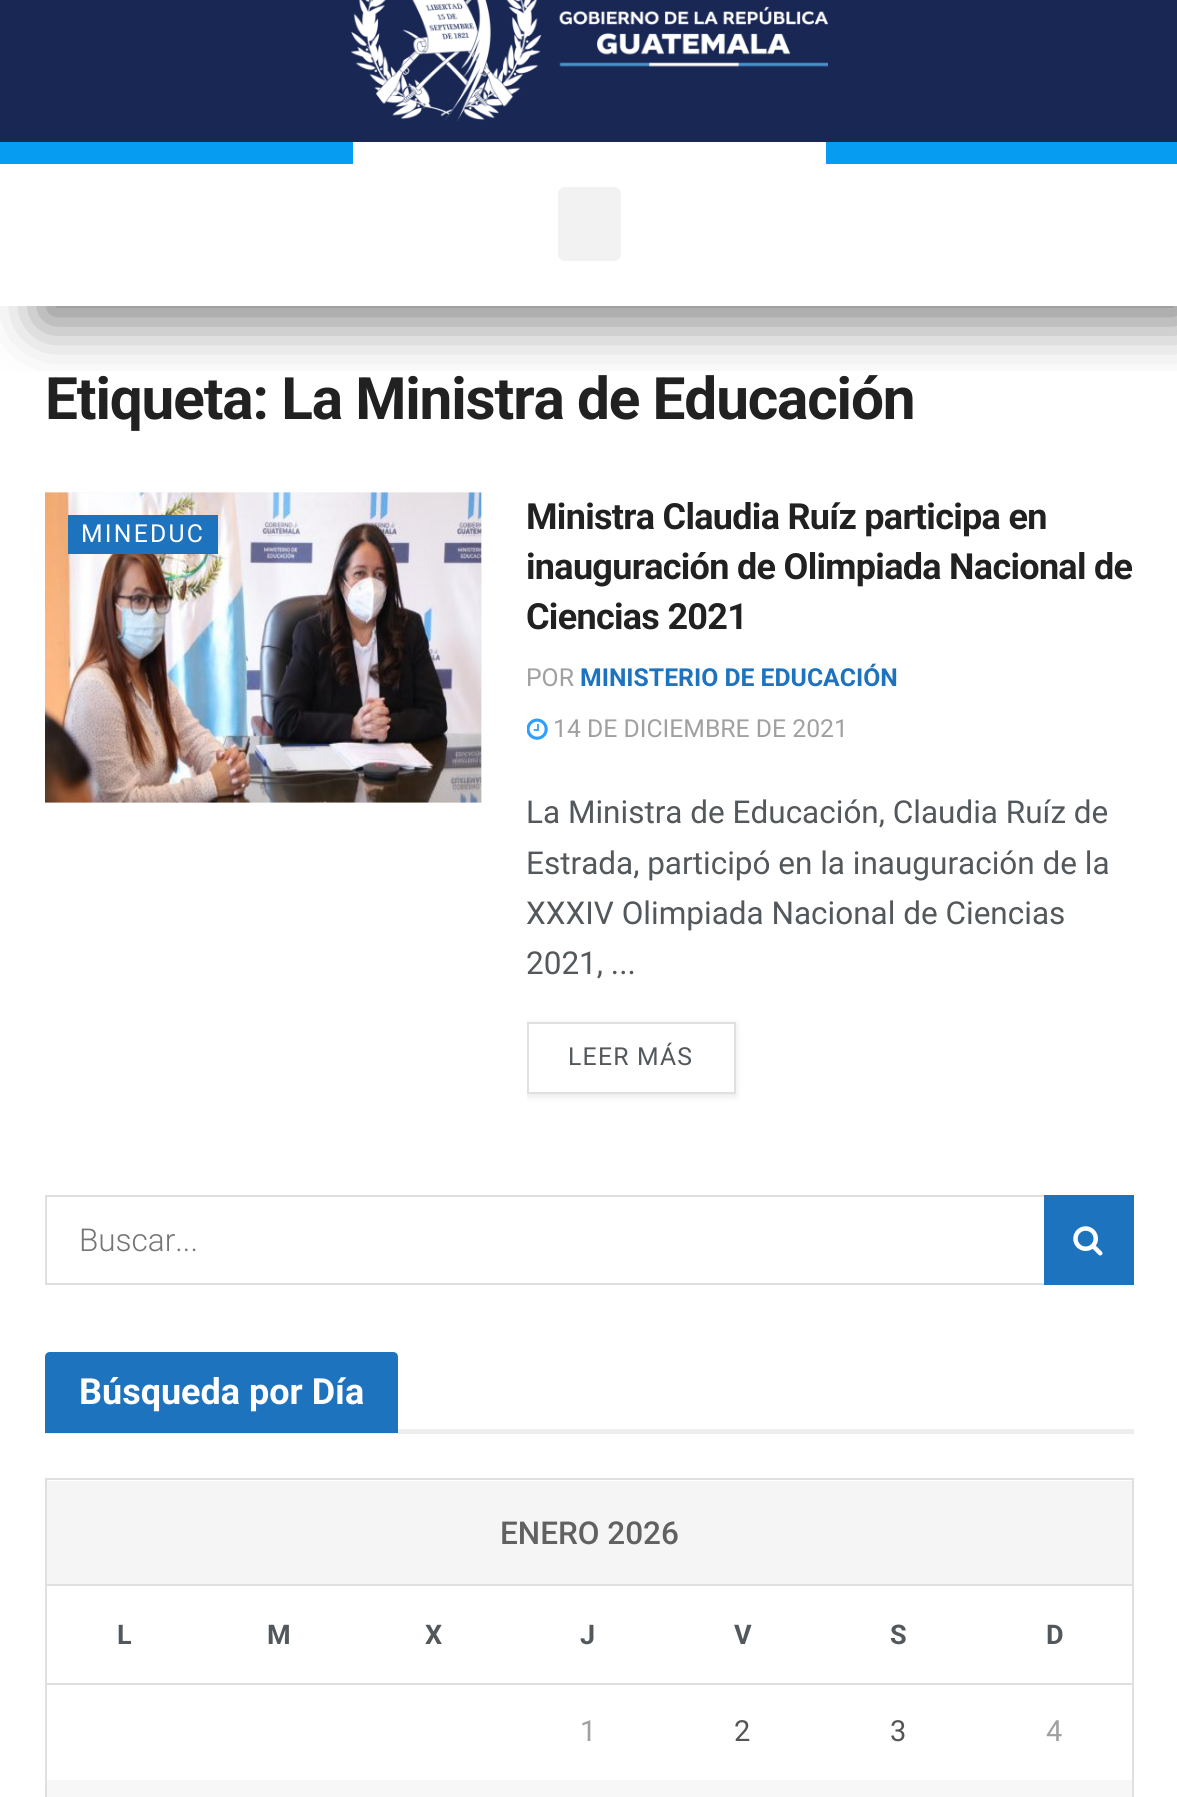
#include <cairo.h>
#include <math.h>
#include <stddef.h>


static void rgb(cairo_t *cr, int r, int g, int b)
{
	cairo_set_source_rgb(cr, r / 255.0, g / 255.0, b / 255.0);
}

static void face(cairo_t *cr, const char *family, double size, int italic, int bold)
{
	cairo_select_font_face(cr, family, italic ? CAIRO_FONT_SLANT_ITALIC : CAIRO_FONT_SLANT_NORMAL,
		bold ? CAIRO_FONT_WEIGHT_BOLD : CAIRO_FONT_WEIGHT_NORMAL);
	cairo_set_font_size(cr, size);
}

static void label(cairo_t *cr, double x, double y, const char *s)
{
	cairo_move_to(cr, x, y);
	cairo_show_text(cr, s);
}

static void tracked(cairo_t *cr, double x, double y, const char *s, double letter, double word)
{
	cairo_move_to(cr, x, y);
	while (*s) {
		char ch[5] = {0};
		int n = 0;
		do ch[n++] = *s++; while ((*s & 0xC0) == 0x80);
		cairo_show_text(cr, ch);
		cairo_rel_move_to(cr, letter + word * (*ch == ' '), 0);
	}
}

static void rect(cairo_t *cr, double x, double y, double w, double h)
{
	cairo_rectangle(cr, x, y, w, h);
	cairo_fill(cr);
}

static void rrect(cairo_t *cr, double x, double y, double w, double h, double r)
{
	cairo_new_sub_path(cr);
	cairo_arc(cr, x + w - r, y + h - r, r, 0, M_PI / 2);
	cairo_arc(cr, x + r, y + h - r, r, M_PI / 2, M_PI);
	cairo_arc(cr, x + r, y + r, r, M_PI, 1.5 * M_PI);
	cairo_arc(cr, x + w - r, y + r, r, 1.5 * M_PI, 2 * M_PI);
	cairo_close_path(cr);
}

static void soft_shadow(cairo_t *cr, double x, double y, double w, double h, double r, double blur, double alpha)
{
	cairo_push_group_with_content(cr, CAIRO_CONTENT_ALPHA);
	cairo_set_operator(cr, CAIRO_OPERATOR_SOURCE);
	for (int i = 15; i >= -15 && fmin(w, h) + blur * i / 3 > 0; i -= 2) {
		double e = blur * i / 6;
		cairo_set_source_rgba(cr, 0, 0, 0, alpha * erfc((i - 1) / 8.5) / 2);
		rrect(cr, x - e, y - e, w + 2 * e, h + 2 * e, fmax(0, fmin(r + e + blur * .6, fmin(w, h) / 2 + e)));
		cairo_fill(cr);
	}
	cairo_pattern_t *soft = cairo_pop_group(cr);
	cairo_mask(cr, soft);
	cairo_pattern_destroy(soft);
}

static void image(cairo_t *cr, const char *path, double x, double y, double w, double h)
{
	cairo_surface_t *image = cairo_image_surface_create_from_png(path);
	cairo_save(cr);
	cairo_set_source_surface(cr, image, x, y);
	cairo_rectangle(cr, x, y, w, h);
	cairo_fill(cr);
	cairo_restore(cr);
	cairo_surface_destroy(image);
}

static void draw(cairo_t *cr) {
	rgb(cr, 255, 255, 255);
	cairo_paint(cr);
	rgb(cr, 25, 39, 85);
	rect(cr, 0, 0, 1177, 142);
	image(cr, "image0.png", 351, 0, 477, 121);
	cairo_save(cr);
	cairo_rectangle(cr, 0, 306, 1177, 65);
	cairo_clip(cr);
	rgb(cr, 0, 0, 0);
	soft_shadow(cr, 41, 212, 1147, 110, 0, 28, 0.5);
	cairo_restore(cr);
	rgb(cr, 242, 242, 242);
	rrect(cr, 558, 187, 63, 74, 7);
	cairo_fill(cr);
	rgb(cr, 6, 156, 241);
	rect(cr, 0, 142, 353, 22);
	rgb(cr, 255, 255, 255);
	rect(cr, 353, 155, 473, 9);
	rgb(cr, 6, 156, 241);
	rect(cr, 826, 142, 351, 22);
	face(cr, "Roboto", 58.5, 0, 1);
	rgb(cr, 33, 33, 33);
	tracked(cr, 45, 419, "Etiqueta: La Ministra de Educación", -1.15, 0);
	rgb(cr, 247, 247, 247);
	rect(cr, 45, 493, 437, 310);
	image(cr, "image1.png", 45, 492, 436, 311);
	image(cr, "image2.png", 45, 492, 437, 311);
	rgb(cr, 30, 115, 190);
	rect(cr, 68, 515, 150, 39);
	face(cr, "Roboto", 24.75, 0, 0);
	rgb(cr, 255, 255, 255);
	tracked(cr, 81, 542, "MINEDUC", 2.25, 0);
	face(cr, "Roboto", 36, 0, 1);
	rgb(cr, 33, 33, 33);
	tracked(cr, 526, 529, "Ministra Claudia Ruíz participa en", -0.7, 0);
	tracked(cr, 526, 579, "inauguración de Olimpiada Nacional de", -0.7, 0);
	tracked(cr, 526, 629, "Ciencias 2021", -0.7, 0);
	face(cr, "Roboto", 24.75, 0, 0);
	rgb(cr, 160, 160, 160);
	label(cr, 526, 686, "POR");
	face(cr, "Roboto", 24.75, 0, 1);
	rgb(cr, 30, 115, 190);
	label(cr, 580, 686, "MINISTERIO DE EDUCACIÓN");
	image(cr, "image3.png", 527, 718, 21, 22);
	face(cr, "Roboto", 24.75, 0, 0);
	rgb(cr, 160, 160, 160);
	label(cr, 553, 737, "14 DE DICIEMBRE DE 2021");
	face(cr, "Roboto", 31.5, 0, 0);
	rgb(cr, 83, 88, 92);
	label(cr, 526, 823, "La Ministra de Educación, Claudia Ruíz de");
	label(cr, 526, 874, "Estrada, participó en la inauguración de la");
	label(cr, 526, 924, "XXXIV Olimpiada Nacional de Ciencias");
	label(cr, 526, 974, "2021, ...");
	cairo_save(cr);
	cairo_rectangle(cr, 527, 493, 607, 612);
	cairo_clip(cr);
	cairo_set_fill_rule(cr, CAIRO_FILL_RULE_EVEN_ODD);
	cairo_new_path(cr);
	cairo_move_to(cr, 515, 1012);
	cairo_line_to(cr, 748, 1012);
	cairo_line_to(cr, 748, 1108);
	cairo_line_to(cr, 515, 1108);
	cairo_close_path(cr);
	cairo_move_to(cr, 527, 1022);
	cairo_line_to(cr, 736, 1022);
	cairo_line_to(cr, 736, 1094);
	cairo_line_to(cr, 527, 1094);
	cairo_close_path(cr);
	cairo_clip(cr);
	rgb(cr, 0, 0, 0);
	soft_shadow(cr, 527, 1024, 209, 72, 0, 3.5, 0.1);
	cairo_restore(cr);
	cairo_rectangle(cr, 528, 1023, 207, 70);
	rgb(cr, 224, 224, 224);
	cairo_stroke(cr);
	face(cr, "Roboto", 24.75, 0, 0);
	rgb(cr, 83, 88, 92);
	tracked(cr, 568, 1065, "LEER MÁS", 1.25, 0);
	cairo_rectangle(cr, 46, 1196, 1087, 88);
	rgb(cr, 224, 224, 224);
	cairo_stroke(cr);
	face(cr, "Roboto Light", 31.5, 0, 0);
	rgb(cr, 117, 117, 117);
	label(cr, 79, 1251, "Buscar...");
	rgb(cr, 30, 115, 190);
	rect(cr, 1044, 1195, 90, 90);
	image(cr, "image4.png", 1073, 1226, 30, 30);
	rgb(cr, 238, 238, 238);
	rect(cr, 45, 1429, 1089, 5);
	rgb(cr, 30, 115, 190);
	cairo_new_path(cr);
	cairo_move_to(cr, 50, 1352);
	cairo_line_to(cr, 393, 1352);
	cairo_curve_to(cr, 396, 1352, 398, 1354, 398, 1357);
	cairo_line_to(cr, 398, 1433);
	cairo_line_to(cr, 45, 1433);
	cairo_line_to(cr, 45, 1357);
	cairo_curve_to(cr, 45, 1354, 47, 1352, 50, 1352);
	cairo_close_path(cr);
	cairo_fill(cr);
	face(cr, "Roboto", 36, 0, 1);
	rgb(cr, 255, 255, 255);
	label(cr, 79, 1404, "Búsqueda por Día");
	cairo_rectangle(cr, 46, 1479, 1087, 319);
	rgb(cr, 224, 224, 224);
	cairo_stroke(cr);
	rgb(cr, 245, 245, 245);
	rect(cr, 47, 1481, 1085, 103);
	rgb(cr, 224, 224, 224);
	rect(cr, 47, 1584, 1085, 2);
	face(cr, "Roboto Medium", 31.5, 0, 0);
	rgb(cr, 97, 97, 97);
	label(cr, 500, 1544, "ENERO 2026");
	rgb(cr, 224, 224, 224);
	rect(cr, 47, 1683, 1087, 2);
	face(cr, "Roboto", 27, 0, 1);
	rgb(cr, 83, 88, 92);
	label(cr, 117, 1644, "L");
	label(cr, 267, 1644, "M");
	label(cr, 425, 1644, "X");
	label(cr, 580, 1644, "J");
	label(cr, 734, 1644, "V");
	label(cr, 890, 1644, "S");
	label(cr, 1046, 1644, "D");
	face(cr, "Roboto", 29, 0, 0);
	rgb(cr, 160, 160, 160);
	label(cr, 580, 1741, "1");
	rgb(cr, 85, 85, 85);
	label(cr, 734, 1741, "2");
	label(cr, 890, 1741, "3");
	rgb(cr, 160, 160, 160);
	label(cr, 1046, 1741, "4");
	rgb(cr, 247, 247, 247);
	rect(cr, 47, 1780, 1085, 17);
}

int main(void) {
	cairo_surface_t *surface = cairo_image_surface_create(CAIRO_FORMAT_RGB24, 1177, 1797);
	cairo_t *cr = cairo_create(surface);
	cairo_font_options_t *options = cairo_font_options_create();
	cairo_font_options_set_hint_metrics(options, CAIRO_HINT_METRICS_OFF);
	cairo_font_options_set_hint_style(options, CAIRO_HINT_STYLE_NONE);
	cairo_set_font_options(cr, options);
	cairo_set_miter_limit(cr, 4);
	draw(cr);
	cairo_surface_write_to_png(surface, "render.png");
	cairo_font_options_destroy(options);
	cairo_destroy(cr);
	cairo_surface_destroy(surface);
	return 0;
}
